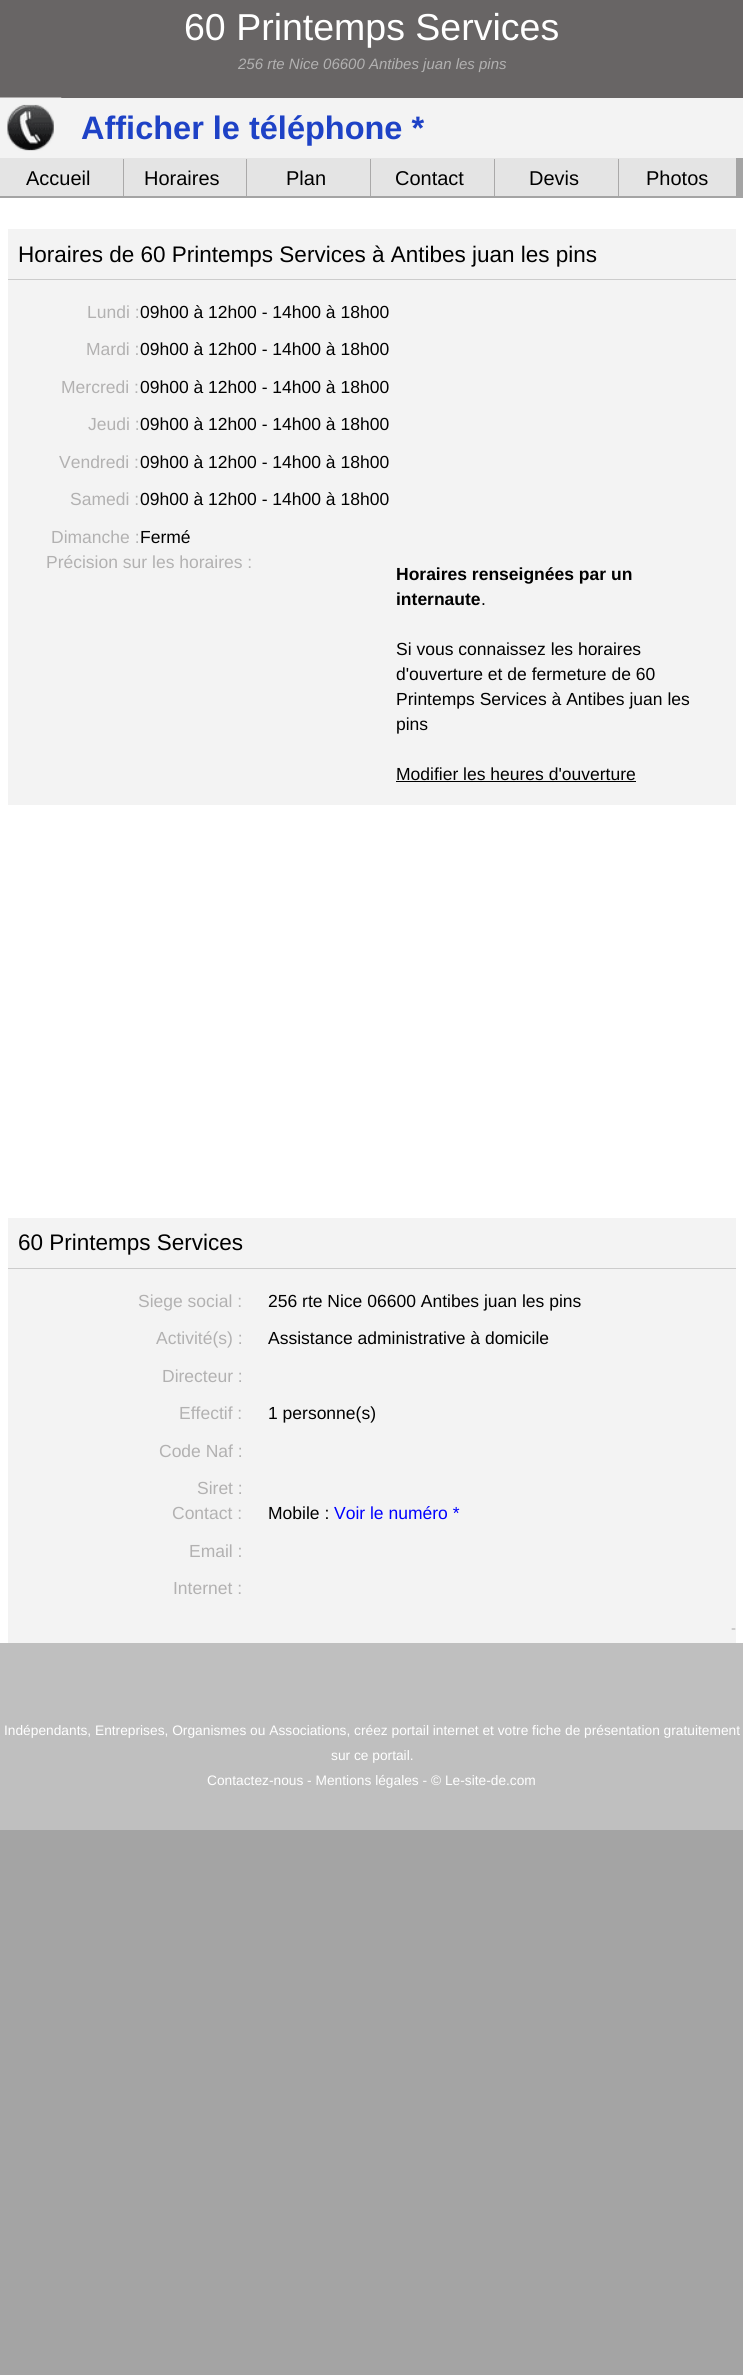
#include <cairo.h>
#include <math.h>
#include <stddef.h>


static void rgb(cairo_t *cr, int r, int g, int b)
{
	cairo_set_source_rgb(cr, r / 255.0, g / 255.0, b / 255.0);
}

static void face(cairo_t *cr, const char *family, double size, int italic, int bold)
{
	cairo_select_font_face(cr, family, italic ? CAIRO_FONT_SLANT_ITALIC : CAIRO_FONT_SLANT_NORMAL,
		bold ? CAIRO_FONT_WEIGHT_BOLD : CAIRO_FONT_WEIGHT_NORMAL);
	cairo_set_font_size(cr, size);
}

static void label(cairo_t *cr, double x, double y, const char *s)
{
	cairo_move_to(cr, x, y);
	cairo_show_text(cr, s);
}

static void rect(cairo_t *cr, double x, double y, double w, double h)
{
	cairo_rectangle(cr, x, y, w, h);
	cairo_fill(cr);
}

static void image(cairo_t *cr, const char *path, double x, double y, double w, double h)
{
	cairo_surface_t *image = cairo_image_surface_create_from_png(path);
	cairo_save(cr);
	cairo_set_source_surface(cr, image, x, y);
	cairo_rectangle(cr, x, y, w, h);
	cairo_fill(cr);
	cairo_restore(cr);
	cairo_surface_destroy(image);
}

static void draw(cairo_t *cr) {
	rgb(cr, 164, 164, 164);
	cairo_paint(cr);
	rgb(cr, 104, 101, 101);
	rect(cr, 0, 0, 743, 98);
	face(cr, "Liberation Sans", 37.5, 0, 0);
	rgb(cr, 255, 255, 255);
	label(cr, 184, 40, "60 Printemps Services");
	face(cr, "Liberation Sans", 15, 1, 0);
	rgb(cr, 178, 177, 177);
	label(cr, 238, 69, "256 rte Nice 06600 Antibes juan les pins");
	rgb(cr, 243, 243, 243);
	rect(cr, 0, 98, 743, 60);
	image(cr, "image0.png", 0, 97, 62, 54);
	face(cr, "Liberation Sans", 32.5, 0, 1);
	rgb(cr, 30, 66, 198);
	label(cr, 81, 139, "Afficher le téléphone *");
	rgb(cr, 228, 228, 228);
	rect(cr, 0, 158, 736, 38);
	face(cr, "Liberation Sans", 20, 0, 0);
	rgb(cr, 0, 0, 0);
	label(cr, 26, 185, "Accueil");
	rgb(cr, 170, 169, 169);
	rect(cr, 123, 159, 1, 37);
	rgb(cr, 0, 0, 0);
	label(cr, 144, 185, "Horaires");
	rgb(cr, 170, 169, 169);
	rect(cr, 246, 159, 1, 37);
	rgb(cr, 0, 0, 0);
	label(cr, 286, 185, "Plan");
	rgb(cr, 170, 169, 169);
	rect(cr, 370, 159, 1, 37);
	rgb(cr, 0, 0, 0);
	label(cr, 395, 185, "Contact");
	rgb(cr, 170, 169, 169);
	rect(cr, 494, 159, 1, 37);
	rgb(cr, 0, 0, 0);
	label(cr, 529, 185, "Devis");
	rgb(cr, 170, 169, 169);
	rect(cr, 618, 159, 1, 37);
	rgb(cr, 0, 0, 0);
	label(cr, 646, 185, "Photos");
	rgb(cr, 255, 255, 255);
	rect(cr, 0, 198, 743, 1445);
	rgb(cr, 243, 243, 243);
	rect(cr, 8, 229, 728, 576);
	face(cr, "Liberation Sans", 22.5, 0, 0);
	rgb(cr, 0, 0, 0);
	label(cr, 18, 262, "Horaires de 60 Printemps Services à Antibes juan les pins");
	rgb(cr, 204, 204, 204);
	rect(cr, 8, 279, 728, 1);
	face(cr, "Liberation Sans", 17.5, 0, 0);
	rgb(cr, 178, 177, 177);
	label(cr, 87, 318, "Lundi :");
	rgb(cr, 0, 0, 0);
	label(cr, 140, 318, "09h00 à 12h00 - 14h00 à 18h00");
	rgb(cr, 178, 177, 177);
	label(cr, 86, 355, "Mardi :");
	rgb(cr, 0, 0, 0);
	label(cr, 140, 355, "09h00 à 12h00 - 14h00 à 18h00");
	rgb(cr, 178, 177, 177);
	label(cr, 61, 393, "Mercredi :");
	rgb(cr, 0, 0, 0);
	label(cr, 140, 393, "09h00 à 12h00 - 14h00 à 18h00");
	rgb(cr, 178, 177, 177);
	label(cr, 88, 430, "Jeudi :");
	rgb(cr, 0, 0, 0);
	label(cr, 140, 430, "09h00 à 12h00 - 14h00 à 18h00");
	rgb(cr, 178, 177, 177);
	label(cr, 59, 468, "Vendredi :");
	rgb(cr, 0, 0, 0);
	label(cr, 140, 468, "09h00 à 12h00 - 14h00 à 18h00");
	rgb(cr, 178, 177, 177);
	label(cr, 70, 505, "Samedi :");
	rgb(cr, 0, 0, 0);
	label(cr, 140, 505, "09h00 à 12h00 - 14h00 à 18h00");
	rgb(cr, 178, 177, 177);
	label(cr, 51, 543, "Dimanche :");
	rgb(cr, 0, 0, 0);
	label(cr, 140, 543, "Fermé");
	rgb(cr, 178, 177, 177);
	label(cr, 46, 568, "Précision sur les horaires :");
	face(cr, "Liberation Sans", 17.5, 0, 1);
	rgb(cr, 0, 0, 0);
	label(cr, 396, 580, "Horaires renseignées par un");
	label(cr, 396, 605, "internaute");
	face(cr, "Liberation Sans", 17.5, 0, 0);
	label(cr, 481, 605, ".");
	label(cr, 396, 655, "Si vous connaissez les horaires");
	label(cr, 396, 680, "d'ouverture et de fermeture de 60");
	label(cr, 396, 705, "Printemps Services à Antibes juan les");
	label(cr, 396, 730, "pins");
	label(cr, 396, 780, "Modifier les heures d'ouverture");
	rect(cr, 396, 781, 240, 1);
	rgb(cr, 243, 243, 243);
	rect(cr, 8, 1218, 728, 425);
	face(cr, "Liberation Sans", 22.5, 0, 0);
	rgb(cr, 0, 0, 0);
	label(cr, 18, 1250, "60 Printemps Services");
	rgb(cr, 204, 204, 204);
	rect(cr, 8, 1268, 728, 1);
	face(cr, "Liberation Sans", 17.5, 0, 0);
	rgb(cr, 178, 177, 177);
	label(cr, 138, 1307, "Siege social :");
	rgb(cr, 0, 0, 0);
	label(cr, 268, 1307, "256 rte Nice 06600 Antibes juan les pins");
	rgb(cr, 178, 177, 177);
	label(cr, 156, 1344, "Activité(s) :");
	rgb(cr, 0, 0, 0);
	label(cr, 268, 1344, "Assistance administrative à domicile");
	rgb(cr, 178, 177, 177);
	label(cr, 162, 1382, "Directeur :");
	label(cr, 179, 1419, "Effectif :");
	rgb(cr, 0, 0, 0);
	label(cr, 268, 1419, "1 personne(s)");
	rgb(cr, 178, 177, 177);
	label(cr, 159, 1457, "Code Naf :");
	label(cr, 197, 1494, "Siret :");
	label(cr, 172, 1519, "Contact :");
	rgb(cr, 0, 0, 0);
	label(cr, 268, 1519, "Mobile :");
	rgb(cr, 0, 0, 255);
	label(cr, 334, 1519, "Voir le numéro *");
	rgb(cr, 178, 177, 177);
	label(cr, 189, 1557, "Email :");
	label(cr, 173, 1594, "Internet :");
	face(cr, "Liberation Sans", 15, 0, 0);
	label(cr, 731, 1633, "-");
	rgb(cr, 191, 191, 191);
	rect(cr, 0, 1643, 743, 187);
	face(cr, "Liberation Sans", 13.75, 0, 0);
	rgb(cr, 255, 255, 255);
	label(cr, 4, 1735, "Indépendants, Entreprises, Organismes ou Associations, créez portail internet et votre fiche de présentation gratuitement");
	label(cr, 331, 1760, "sur ce portail.");
	label(cr, 207, 1785, "Contactez-nous - Mentions légales - © Le-site-de.com");
}

int main(void) {
	cairo_surface_t *surface = cairo_image_surface_create(CAIRO_FORMAT_RGB24, 743, 2375);
	cairo_t *cr = cairo_create(surface);
	cairo_font_options_t *options = cairo_font_options_create();
	cairo_font_options_set_hint_metrics(options, CAIRO_HINT_METRICS_OFF);
	cairo_font_options_set_hint_style(options, CAIRO_HINT_STYLE_NONE);
	cairo_set_font_options(cr, options);
	cairo_set_miter_limit(cr, 4);
	draw(cr);
	cairo_surface_write_to_png(surface, "render.png");
	cairo_font_options_destroy(options);
	cairo_destroy(cr);
	cairo_surface_destroy(surface);
	return 0;
}
